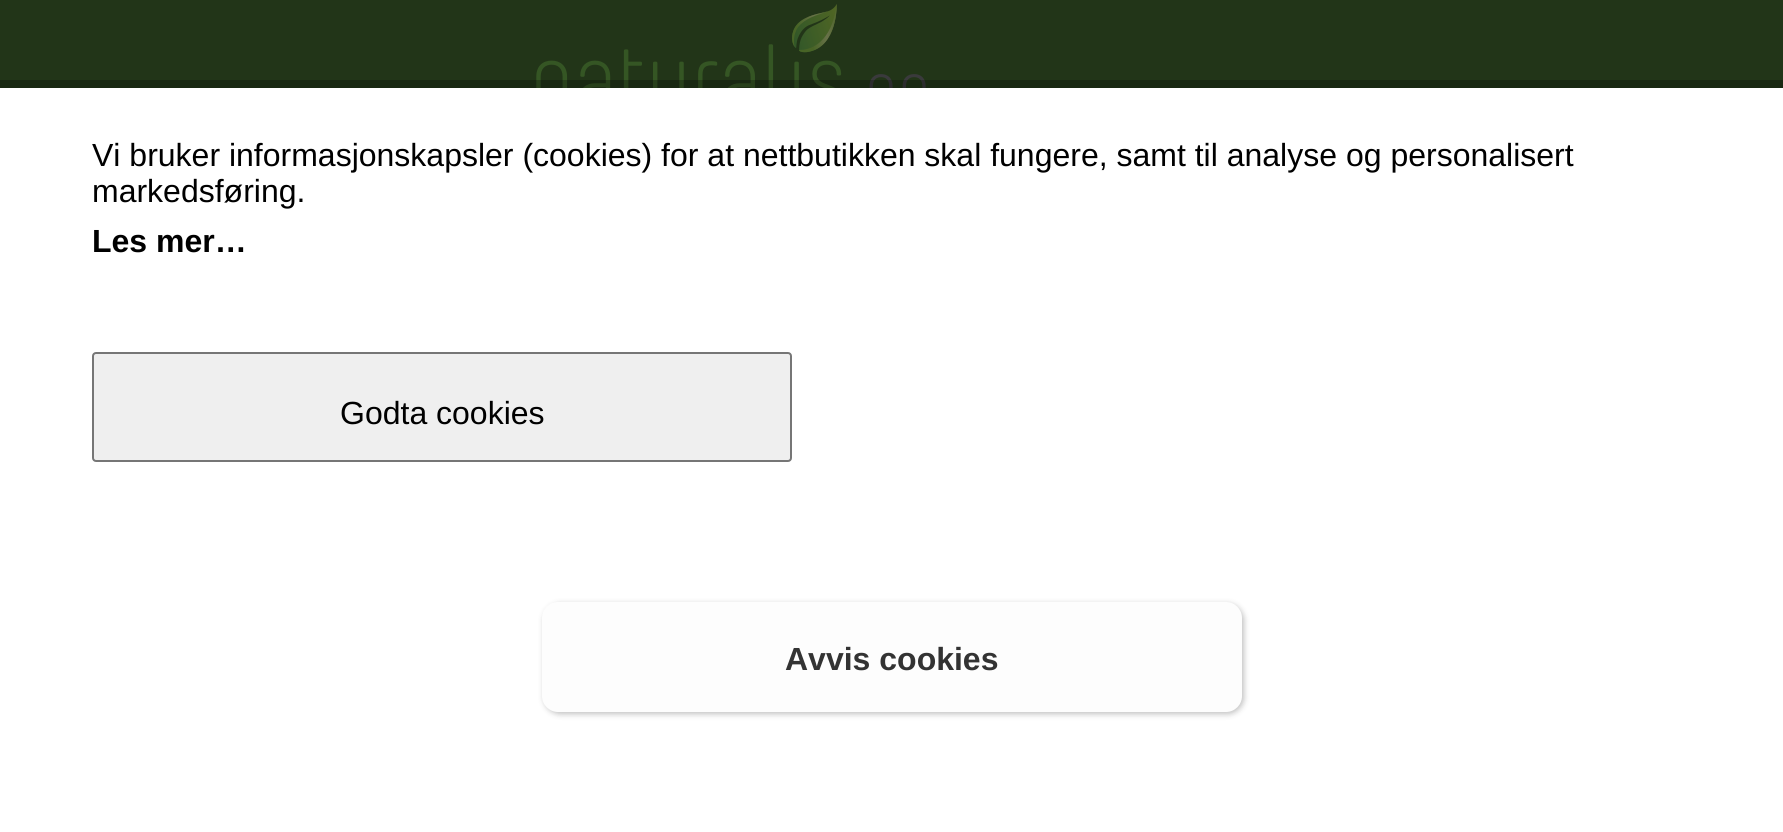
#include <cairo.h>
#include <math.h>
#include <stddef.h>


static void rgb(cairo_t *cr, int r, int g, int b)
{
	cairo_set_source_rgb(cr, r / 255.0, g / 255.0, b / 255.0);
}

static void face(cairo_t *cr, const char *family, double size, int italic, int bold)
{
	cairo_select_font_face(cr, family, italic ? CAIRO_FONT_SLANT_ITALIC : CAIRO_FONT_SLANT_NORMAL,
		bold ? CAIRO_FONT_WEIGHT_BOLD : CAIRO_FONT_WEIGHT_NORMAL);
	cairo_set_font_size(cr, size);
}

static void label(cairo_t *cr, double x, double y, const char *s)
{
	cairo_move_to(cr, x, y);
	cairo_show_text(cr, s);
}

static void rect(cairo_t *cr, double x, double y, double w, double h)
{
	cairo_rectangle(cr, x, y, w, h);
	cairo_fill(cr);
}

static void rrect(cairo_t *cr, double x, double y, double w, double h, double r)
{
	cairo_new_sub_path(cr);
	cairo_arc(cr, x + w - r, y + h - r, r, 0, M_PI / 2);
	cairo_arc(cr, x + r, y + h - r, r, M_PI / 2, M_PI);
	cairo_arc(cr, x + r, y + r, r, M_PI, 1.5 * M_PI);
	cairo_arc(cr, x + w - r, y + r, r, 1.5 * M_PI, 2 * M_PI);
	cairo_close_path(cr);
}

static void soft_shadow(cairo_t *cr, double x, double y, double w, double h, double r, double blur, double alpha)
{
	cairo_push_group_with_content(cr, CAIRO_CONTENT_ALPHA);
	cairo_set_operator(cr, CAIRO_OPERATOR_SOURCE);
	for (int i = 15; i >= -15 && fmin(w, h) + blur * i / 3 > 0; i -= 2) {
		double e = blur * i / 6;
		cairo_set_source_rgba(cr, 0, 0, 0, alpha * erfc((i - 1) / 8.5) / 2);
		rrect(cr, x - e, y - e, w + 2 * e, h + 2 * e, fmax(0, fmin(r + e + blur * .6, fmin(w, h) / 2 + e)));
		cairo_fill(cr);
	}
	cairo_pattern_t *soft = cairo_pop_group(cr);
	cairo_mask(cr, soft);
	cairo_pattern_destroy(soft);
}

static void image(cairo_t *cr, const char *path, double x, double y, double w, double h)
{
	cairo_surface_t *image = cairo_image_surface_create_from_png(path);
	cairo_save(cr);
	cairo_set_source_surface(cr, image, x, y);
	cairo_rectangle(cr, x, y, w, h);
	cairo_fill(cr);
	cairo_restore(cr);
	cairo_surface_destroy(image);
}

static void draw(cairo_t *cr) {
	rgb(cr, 34, 53, 24);
	cairo_paint(cr);
	image(cr, "image0.png", 536, 4, 390, 84);
	cairo_set_source_rgba(cr, 0, 0, 0, 0.25);
	rect(cr, 0, 80, 1783, 8);
	rgb(cr, 255, 255, 255);
	rect(cr, 0, 88, 1783, 744);
	face(cr, "Liberation Sans", 32, 0, 0);
	rgb(cr, 0, 0, 0);
	label(cr, 92, 166, "Vi bruker informasjonskapsler (cookies) for at nettbutikken skal fungere, samt til analyse og personalisert");
	label(cr, 92, 202, "markedsføring.");
	face(cr, "Liberation Sans", 32, 0, 1);
	label(cr, 92, 252, "Les mer…");
	rgb(cr, 239, 239, 239);
	rrect(cr, 93, 353, 698, 108, 3);
	cairo_fill_preserve(cr);
	rgb(cr, 118, 118, 118);
	cairo_stroke(cr);
	face(cr, "Liberation Sans", 32, 0, 0);
	rgb(cr, 0, 0, 0);
	label(cr, 340, 424, "Godta cookies");
	rgb(cr, 0, 0, 0);
	soft_shadow(cr, 544, 604, 700, 110, 16, 3, 0.25);
	rgb(cr, 253, 253, 253);
	rrect(cr, 542, 602, 700, 110, 16);
	cairo_fill(cr);
	face(cr, "Liberation Sans", 32, 0, 1);
	rgb(cr, 51, 51, 51);
	label(cr, 785, 670, "Avvis cookies");
}

int main(void) {
	cairo_surface_t *surface = cairo_image_surface_create(CAIRO_FORMAT_RGB24, 1783, 832);
	cairo_t *cr = cairo_create(surface);
	cairo_font_options_t *options = cairo_font_options_create();
	cairo_font_options_set_hint_metrics(options, CAIRO_HINT_METRICS_OFF);
	cairo_font_options_set_hint_style(options, CAIRO_HINT_STYLE_NONE);
	cairo_set_font_options(cr, options);
	cairo_set_miter_limit(cr, 4);
	draw(cr);
	cairo_surface_write_to_png(surface, "render.png");
	cairo_font_options_destroy(options);
	cairo_destroy(cr);
	cairo_surface_destroy(surface);
	return 0;
}
